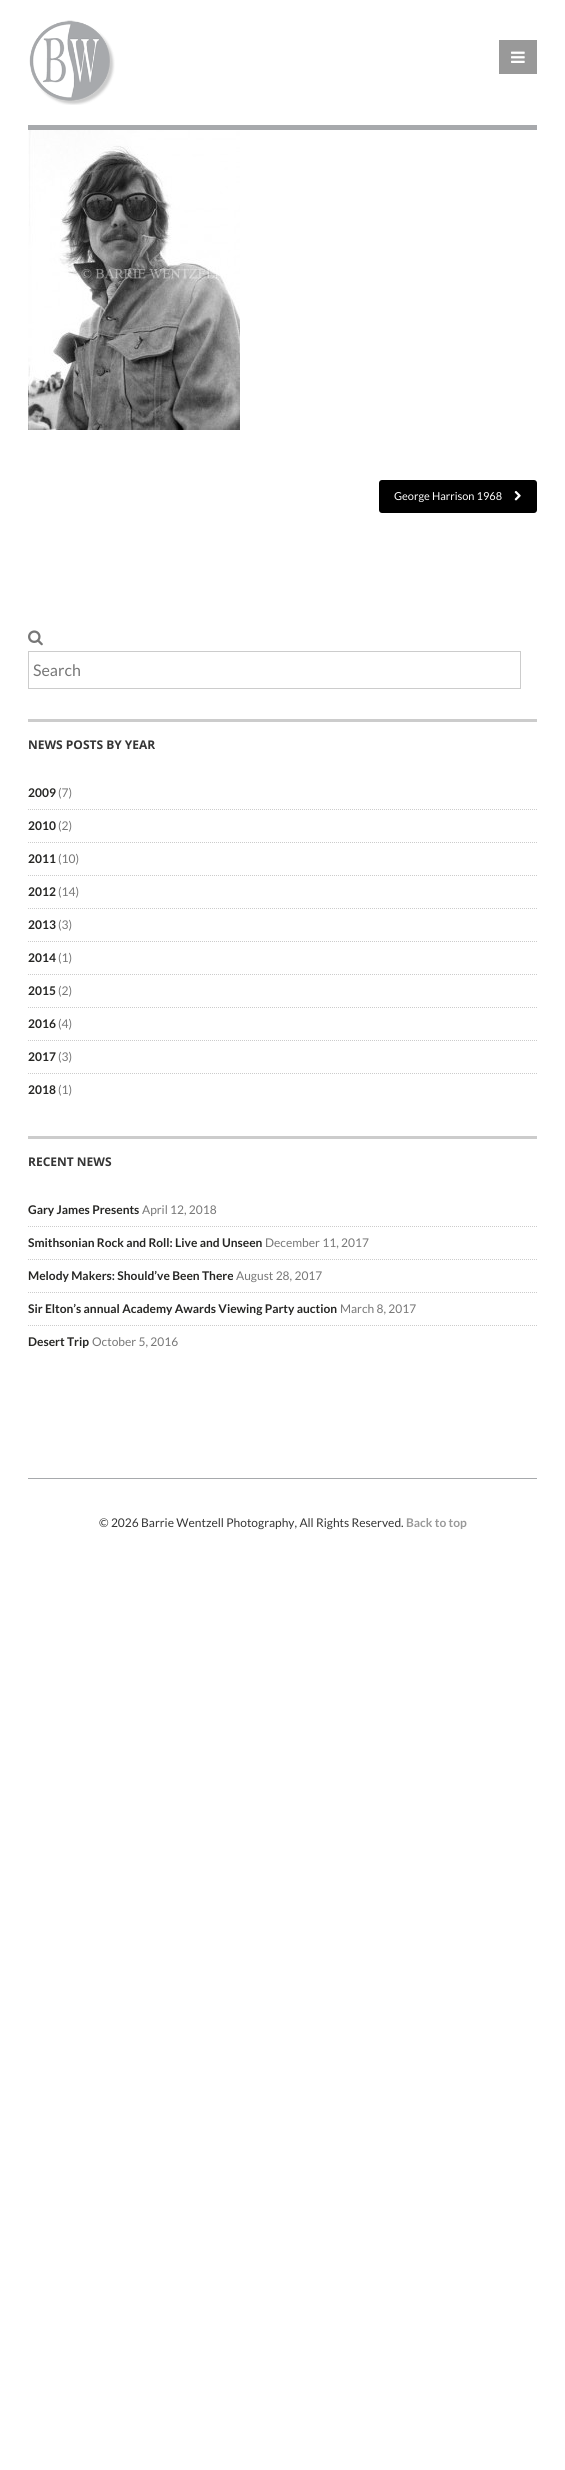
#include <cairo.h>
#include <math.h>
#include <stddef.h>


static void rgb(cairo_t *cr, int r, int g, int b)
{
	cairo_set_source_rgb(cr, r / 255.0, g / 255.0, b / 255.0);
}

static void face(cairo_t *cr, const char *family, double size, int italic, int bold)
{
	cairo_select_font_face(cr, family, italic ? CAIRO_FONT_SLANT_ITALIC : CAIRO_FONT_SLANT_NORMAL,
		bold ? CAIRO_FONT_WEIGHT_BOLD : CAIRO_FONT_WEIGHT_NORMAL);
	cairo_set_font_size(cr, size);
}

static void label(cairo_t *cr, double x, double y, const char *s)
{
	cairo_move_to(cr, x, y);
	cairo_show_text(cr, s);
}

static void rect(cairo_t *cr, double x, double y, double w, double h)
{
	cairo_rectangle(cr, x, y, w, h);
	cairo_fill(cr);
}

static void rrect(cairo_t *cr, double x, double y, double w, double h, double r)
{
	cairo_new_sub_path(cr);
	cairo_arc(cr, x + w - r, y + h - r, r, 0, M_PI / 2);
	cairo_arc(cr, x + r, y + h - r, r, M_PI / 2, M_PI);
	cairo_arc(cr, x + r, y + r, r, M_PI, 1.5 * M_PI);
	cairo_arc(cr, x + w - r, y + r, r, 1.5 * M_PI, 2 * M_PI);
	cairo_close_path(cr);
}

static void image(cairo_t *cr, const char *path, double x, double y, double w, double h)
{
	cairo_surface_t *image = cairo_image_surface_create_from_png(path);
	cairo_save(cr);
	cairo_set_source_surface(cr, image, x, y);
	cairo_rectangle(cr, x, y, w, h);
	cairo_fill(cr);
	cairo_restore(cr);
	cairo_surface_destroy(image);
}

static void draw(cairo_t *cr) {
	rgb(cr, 255, 255, 255);
	cairo_paint(cr);
	image(cr, "image0.png", 29, 20, 86, 85);
	rgb(cr, 153, 153, 153);
	rect(cr, 499, 40, 38, 34);
	image(cr, "image1.png", 511, 51, 14, 12);
	rgb(cr, 167, 169, 172);
	rect(cr, 28, 125, 509, 5);
	image(cr, "image2.png", 28, 130, 212, 300);
	rgb(cr, 0, 0, 0);
	rrect(cr, 379, 480, 158, 33, 3);
	cairo_fill(cr);
	face(cr, "Lato", 11, 0, 0);
	rgb(cr, 255, 255, 255);
	label(cr, 394, 500, "George Harrison 1968");
	image(cr, "image3.png", 514, 491, 7, 10);
	image(cr, "image4.png", 28, 630, 15, 16);
	cairo_rectangle(cr, 28.5, 651.5, 492, 37);
	rgb(cr, 204, 204, 204);
	cairo_set_line_width(cr, 1);
	cairo_stroke(cr);
	face(cr, "Lato", 16, 0, 0);
	rgb(cr, 119, 119, 119);
	label(cr, 33, 676, "Search");
	rgb(cr, 204, 204, 204);
	rect(cr, 28, 719, 509, 3);
	face(cr, "Open Sans", 12, 0, 1);
	rgb(cr, 53, 53, 53);
	label(cr, 28, 749, "NEWS POSTS BY YEAR");
	cairo_new_path(cr);
	cairo_move_to(cr, 28, 809.5);
	cairo_line_to(cr, 537, 809.5);
	rgb(cr, 204, 204, 204);
	cairo_set_dash(cr, (double[]){1, 1}, 2, 0);
	cairo_stroke(cr);
	face(cr, "Lato", 12, 0, 1);
	rgb(cr, 38, 38, 36);
	label(cr, 28, 797, "2009");
	face(cr, "Lato", 12, 0, 0);
	rgb(cr, 119, 119, 119);
	label(cr, 58, 797, "(7)");
	cairo_new_path(cr);
	cairo_move_to(cr, 28, 842.5);
	cairo_line_to(cr, 537, 842.5);
	rgb(cr, 204, 204, 204);
	cairo_stroke(cr);
	face(cr, "Lato", 12, 0, 1);
	rgb(cr, 38, 38, 36);
	label(cr, 28, 830, "2010");
	face(cr, "Lato", 12, 0, 0);
	rgb(cr, 119, 119, 119);
	label(cr, 58, 830, "(2)");
	cairo_new_path(cr);
	cairo_move_to(cr, 28, 875.5);
	cairo_line_to(cr, 537, 875.5);
	rgb(cr, 204, 204, 204);
	cairo_stroke(cr);
	face(cr, "Lato", 12, 0, 1);
	rgb(cr, 38, 38, 36);
	label(cr, 28, 863, "2011");
	face(cr, "Lato", 12, 0, 0);
	rgb(cr, 119, 119, 119);
	label(cr, 58, 863, "(10)");
	cairo_new_path(cr);
	cairo_move_to(cr, 28, 908.5);
	cairo_line_to(cr, 537, 908.5);
	rgb(cr, 204, 204, 204);
	cairo_stroke(cr);
	face(cr, "Lato", 12, 0, 1);
	rgb(cr, 38, 38, 36);
	label(cr, 28, 896, "2012");
	face(cr, "Lato", 12, 0, 0);
	rgb(cr, 119, 119, 119);
	label(cr, 58, 896, "(14)");
	cairo_new_path(cr);
	cairo_move_to(cr, 28, 941.5);
	cairo_line_to(cr, 537, 941.5);
	rgb(cr, 204, 204, 204);
	cairo_stroke(cr);
	face(cr, "Lato", 12, 0, 1);
	rgb(cr, 38, 38, 36);
	label(cr, 28, 929, "2013");
	face(cr, "Lato", 12, 0, 0);
	rgb(cr, 119, 119, 119);
	label(cr, 58, 929, "(3)");
	cairo_new_path(cr);
	cairo_move_to(cr, 28, 974.5);
	cairo_line_to(cr, 537, 974.5);
	rgb(cr, 204, 204, 204);
	cairo_stroke(cr);
	face(cr, "Lato", 12, 0, 1);
	rgb(cr, 38, 38, 36);
	label(cr, 28, 962, "2014");
	face(cr, "Lato", 12, 0, 0);
	rgb(cr, 119, 119, 119);
	label(cr, 58, 962, "(1)");
	cairo_new_path(cr);
	cairo_move_to(cr, 28, 1007.5);
	cairo_line_to(cr, 537, 1007.5);
	rgb(cr, 204, 204, 204);
	cairo_stroke(cr);
	face(cr, "Lato", 12, 0, 1);
	rgb(cr, 38, 38, 36);
	label(cr, 28, 995, "2015");
	face(cr, "Lato", 12, 0, 0);
	rgb(cr, 119, 119, 119);
	label(cr, 58, 995, "(2)");
	cairo_new_path(cr);
	cairo_move_to(cr, 28, 1040.5);
	cairo_line_to(cr, 537, 1040.5);
	rgb(cr, 204, 204, 204);
	cairo_stroke(cr);
	face(cr, "Lato", 12, 0, 1);
	rgb(cr, 38, 38, 36);
	label(cr, 28, 1028, "2016");
	face(cr, "Lato", 12, 0, 0);
	rgb(cr, 119, 119, 119);
	label(cr, 58, 1028, "(4)");
	cairo_new_path(cr);
	cairo_move_to(cr, 28, 1073.5);
	cairo_line_to(cr, 537, 1073.5);
	rgb(cr, 204, 204, 204);
	cairo_stroke(cr);
	face(cr, "Lato", 12, 0, 1);
	rgb(cr, 38, 38, 36);
	label(cr, 28, 1061, "2017");
	face(cr, "Lato", 12, 0, 0);
	rgb(cr, 119, 119, 119);
	label(cr, 58, 1061, "(3)");
	face(cr, "Lato", 12, 0, 1);
	rgb(cr, 38, 38, 36);
	label(cr, 28, 1094, "2018");
	face(cr, "Lato", 12, 0, 0);
	rgb(cr, 119, 119, 119);
	label(cr, 58, 1094, "(1)");
	rgb(cr, 204, 204, 204);
	rect(cr, 28, 1136, 509, 3);
	face(cr, "Open Sans", 12, 0, 1);
	rgb(cr, 53, 53, 53);
	label(cr, 28, 1166, "RECENT NEWS");
	cairo_new_path(cr);
	cairo_move_to(cr, 28, 1226.5);
	cairo_line_to(cr, 537, 1226.5);
	rgb(cr, 204, 204, 204);
	cairo_stroke(cr);
	face(cr, "Lato", 12, 0, 1);
	rgb(cr, 38, 38, 36);
	label(cr, 28, 1214, "Gary James Presents");
	face(cr, "Lato", 12, 0, 0);
	rgb(cr, 119, 119, 119);
	label(cr, 142, 1214, "April 12, 2018");
	cairo_new_path(cr);
	cairo_move_to(cr, 28, 1259.5);
	cairo_line_to(cr, 537, 1259.5);
	rgb(cr, 204, 204, 204);
	cairo_stroke(cr);
	face(cr, "Lato", 12, 0, 1);
	rgb(cr, 38, 38, 36);
	label(cr, 28, 1247, "Smithsonian Rock and Roll: Live and Unseen");
	face(cr, "Lato", 12, 0, 0);
	rgb(cr, 119, 119, 119);
	label(cr, 265, 1247, "December 11, 2017");
	cairo_new_path(cr);
	cairo_move_to(cr, 28, 1292.5);
	cairo_line_to(cr, 537, 1292.5);
	rgb(cr, 204, 204, 204);
	cairo_stroke(cr);
	face(cr, "Lato", 12, 0, 1);
	rgb(cr, 38, 38, 36);
	label(cr, 28, 1280, "Melody Makers: Should’ve Been There");
	face(cr, "Lato", 12, 0, 0);
	rgb(cr, 119, 119, 119);
	label(cr, 236, 1280, "August 28, 2017");
	cairo_new_path(cr);
	cairo_move_to(cr, 28, 1325.5);
	cairo_line_to(cr, 537, 1325.5);
	rgb(cr, 204, 204, 204);
	cairo_stroke(cr);
	face(cr, "Lato", 12, 0, 1);
	rgb(cr, 38, 38, 36);
	label(cr, 28, 1313, "Sir Elton’s annual Academy Awards Viewing Party auction");
	face(cr, "Lato", 12, 0, 0);
	rgb(cr, 119, 119, 119);
	label(cr, 340, 1313, "March 8, 2017");
	face(cr, "Lato", 12, 0, 1);
	rgb(cr, 38, 38, 36);
	label(cr, 28, 1346, "Desert Trip");
	face(cr, "Lato", 12, 0, 0);
	rgb(cr, 119, 119, 119);
	label(cr, 92, 1346, "October 5, 2016");
	rgb(cr, 167, 169, 172);
	rect(cr, 28, 1478, 509, 1);
	rgb(cr, 53, 53, 53);
	label(cr, 99, 1527, "© 2026 Barrie Wentzell Photography, All Rights Reserved.");
	face(cr, "Lato", 12, 0, 1);
	rgb(cr, 153, 153, 153);
	label(cr, 406, 1527, "Back to top");
}

int main(void) {
	cairo_surface_t *surface = cairo_image_surface_create(CAIRO_FORMAT_RGB24, 565, 2470);
	cairo_t *cr = cairo_create(surface);
	cairo_font_options_t *options = cairo_font_options_create();
	cairo_font_options_set_hint_metrics(options, CAIRO_HINT_METRICS_OFF);
	cairo_font_options_set_hint_style(options, CAIRO_HINT_STYLE_NONE);
	cairo_set_font_options(cr, options);
	cairo_set_miter_limit(cr, 4);
	draw(cr);
	cairo_surface_write_to_png(surface, "render.png");
	cairo_font_options_destroy(options);
	cairo_destroy(cr);
	cairo_surface_destroy(surface);
	return 0;
}
